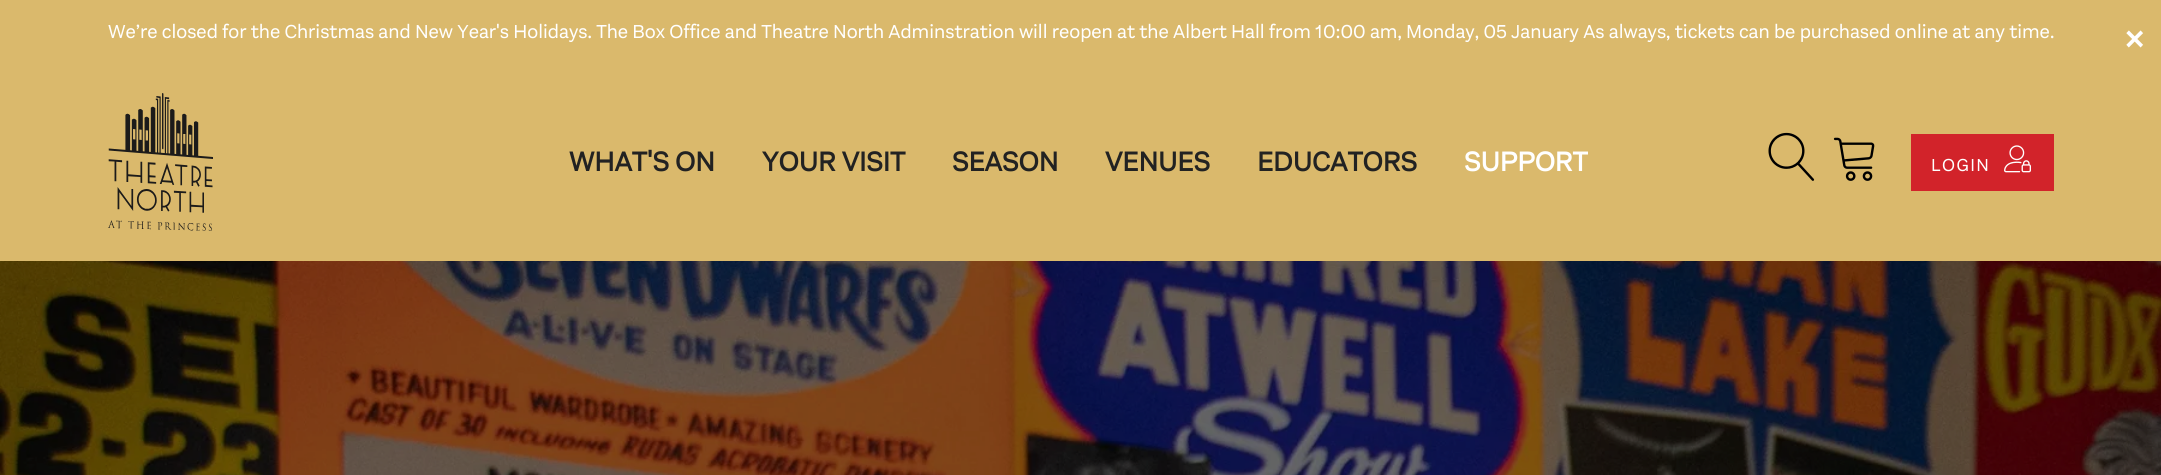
#include <cairo.h>
#include <math.h>
#include <stddef.h>


static void rgb(cairo_t *cr, int r, int g, int b)
{
	cairo_set_source_rgb(cr, r / 255.0, g / 255.0, b / 255.0);
}

static void face(cairo_t *cr, const char *family, double size, int italic, int bold)
{
	cairo_select_font_face(cr, family, italic ? CAIRO_FONT_SLANT_ITALIC : CAIRO_FONT_SLANT_NORMAL,
		bold ? CAIRO_FONT_WEIGHT_BOLD : CAIRO_FONT_WEIGHT_NORMAL);
	cairo_set_font_size(cr, size);
}

static void label(cairo_t *cr, double x, double y, const char *s)
{
	cairo_move_to(cr, x, y);
	cairo_show_text(cr, s);
}

static void tracked(cairo_t *cr, double x, double y, const char *s, double letter, double word)
{
	cairo_move_to(cr, x, y);
	while (*s) {
		char ch[5] = {0};
		int n = 0;
		do ch[n++] = *s++; while ((*s & 0xC0) == 0x80);
		cairo_show_text(cr, ch);
		cairo_rel_move_to(cr, letter + word * (*ch == ' '), 0);
	}
}

static void rect(cairo_t *cr, double x, double y, double w, double h)
{
	cairo_rectangle(cr, x, y, w, h);
	cairo_fill(cr);
}

static void image(cairo_t *cr, const char *path, double x, double y, double w, double h)
{
	cairo_surface_t *image = cairo_image_surface_create_from_png(path);
	cairo_save(cr);
	cairo_set_source_surface(cr, image, x, y);
	cairo_rectangle(cr, x, y, w, h);
	cairo_fill(cr);
	cairo_restore(cr);
	cairo_surface_destroy(image);
}

static void draw(cairo_t *cr) {
	rgb(cr, 218, 185, 108);
	cairo_paint(cr);
	face(cr, "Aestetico", 19.5, 0, 0);
	rgb(cr, 255, 255, 255);
	label(cr, 108, 38, "We’re closed for the Christmas and New Year's Holidays. The Box Office and Theatre North Adminstration will reopen at the Albert Hall from 10:00 am, Monday, 05 January As always, tickets can be purchased online at any time.");
	face(cr, "Aestetico", 45, 0, 0);
	label(cr, 2124, 52, "×");
	image(cr, "image0.png", 108, 93, 105, 138);
	face(cr, "Aestetico", 28, 0, 1);
	rgb(cr, 34, 34, 34);
	label(cr, 569, 171, "WHAT'S ON");
	label(cr, 762, 171, "YOUR VISIT");
	label(cr, 952, 171, "SEASON");
	label(cr, 1105, 171, "VENUES");
	label(cr, 1257, 171, "EDUCATORS");
	rgb(cr, 255, 255, 255);
	label(cr, 1464, 171, "SUPPORT");
	image(cr, "image1.png", 1768, 132, 47, 49);
	image(cr, "image2.png", 1833, 137, 42, 44);
	rgb(cr, 210, 35, 42);
	rect(cr, 1911, 134, 143, 57);
	face(cr, "Aestetico", 18, 0, 0);
	rgb(cr, 255, 255, 255);
	tracked(cr, 1931, 171, "LOGIN", 1.5, 0);
	image(cr, "image3.png", 2004, 145, 27, 28);
	image(cr, "image4.png", 0, 261, 2161, 214);
}

int main(void) {
	cairo_surface_t *surface = cairo_image_surface_create(CAIRO_FORMAT_RGB24, 2161, 475);
	cairo_t *cr = cairo_create(surface);
	cairo_font_options_t *options = cairo_font_options_create();
	cairo_font_options_set_hint_metrics(options, CAIRO_HINT_METRICS_OFF);
	cairo_font_options_set_hint_style(options, CAIRO_HINT_STYLE_NONE);
	cairo_set_font_options(cr, options);
	cairo_set_miter_limit(cr, 4);
	draw(cr);
	cairo_surface_write_to_png(surface, "render.png");
	cairo_font_options_destroy(options);
	cairo_destroy(cr);
	cairo_surface_destroy(surface);
	return 0;
}
